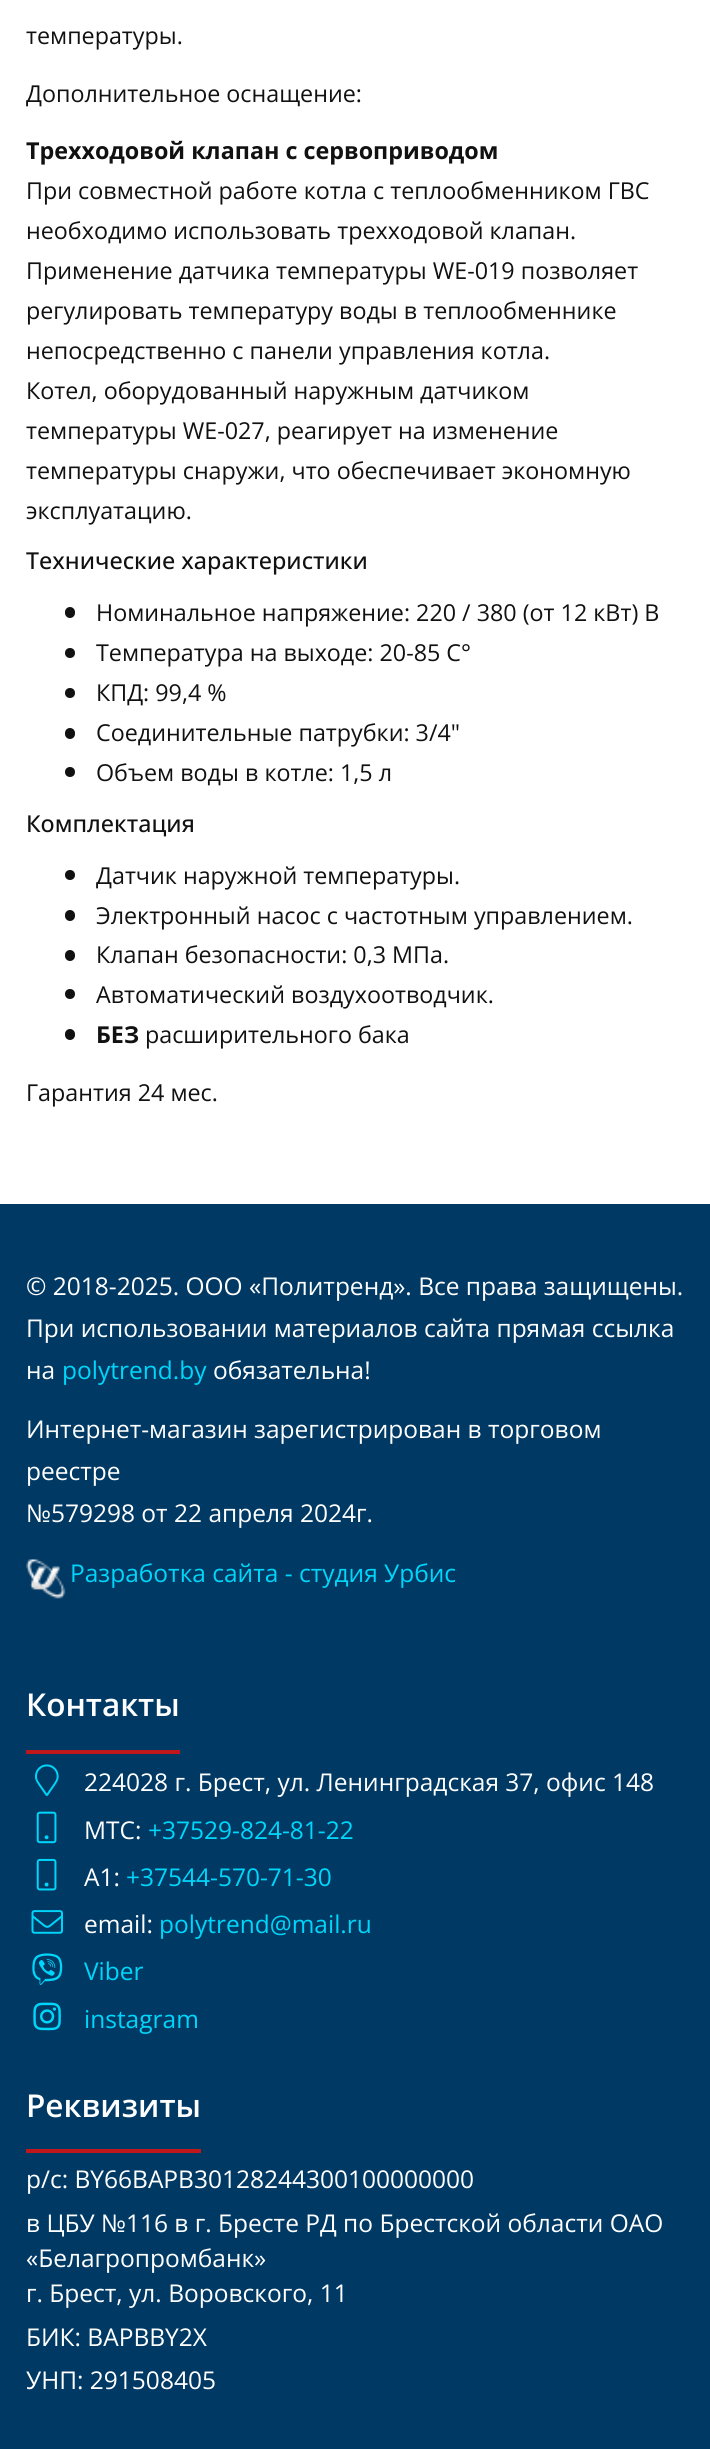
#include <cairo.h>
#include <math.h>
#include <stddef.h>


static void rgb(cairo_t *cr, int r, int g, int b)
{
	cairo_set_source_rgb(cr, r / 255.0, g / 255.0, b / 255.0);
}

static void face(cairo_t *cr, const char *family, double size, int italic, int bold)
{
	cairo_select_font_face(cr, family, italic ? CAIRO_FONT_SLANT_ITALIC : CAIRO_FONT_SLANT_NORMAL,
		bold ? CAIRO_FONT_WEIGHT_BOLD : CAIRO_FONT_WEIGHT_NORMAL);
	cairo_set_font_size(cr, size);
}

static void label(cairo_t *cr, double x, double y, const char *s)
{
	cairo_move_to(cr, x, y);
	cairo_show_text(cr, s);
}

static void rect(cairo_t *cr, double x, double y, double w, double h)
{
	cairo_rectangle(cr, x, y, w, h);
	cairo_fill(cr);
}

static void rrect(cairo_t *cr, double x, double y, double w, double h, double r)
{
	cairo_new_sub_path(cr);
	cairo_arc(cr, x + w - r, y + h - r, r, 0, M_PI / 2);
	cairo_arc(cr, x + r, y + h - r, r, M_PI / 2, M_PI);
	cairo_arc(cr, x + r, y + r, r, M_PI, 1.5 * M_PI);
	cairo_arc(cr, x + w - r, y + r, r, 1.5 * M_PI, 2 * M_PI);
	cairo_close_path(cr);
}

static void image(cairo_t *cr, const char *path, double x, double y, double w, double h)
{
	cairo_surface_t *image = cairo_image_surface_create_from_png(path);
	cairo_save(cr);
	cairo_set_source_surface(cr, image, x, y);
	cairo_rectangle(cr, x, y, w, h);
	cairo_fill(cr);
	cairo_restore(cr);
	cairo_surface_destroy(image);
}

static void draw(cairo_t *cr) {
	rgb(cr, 255, 255, 255);
	cairo_paint(cr);
	face(cr, "Open Sans", 23.3, 0, 0);
	rgb(cr, 17, 17, 17);
	label(cr, 26, 44, "температуры.");
	label(cr, 26, 102, "Дополнительное оснащение:");
	face(cr, "Open Sans", 23.3, 0, 1);
	label(cr, 26, 159, "Трехходовой клапан с сервоприводом");
	face(cr, "Open Sans", 23.3, 0, 0);
	label(cr, 26, 199, "При совместной работе котла с теплообменником ГВС");
	label(cr, 26, 239, "необходимо использовать трехходовой клапан.");
	label(cr, 26, 279, "Применение датчика температуры WE-019 позволяет");
	label(cr, 26, 319, "регулировать температуру воды в теплообменнике");
	label(cr, 26, 359, "непосредственно с панели управления котла.");
	label(cr, 26, 399, "Котел, оборудованный наружным датчиком");
	label(cr, 26, 439, "температуры WE-027, реагирует на изменение");
	label(cr, 26, 479, "температуры снаружи, что обеспечивает экономную");
	label(cr, 26, 519, "эксплуатацию.");
	face(cr, "Open Sans Medium", 23.3, 0, 0);
	label(cr, 26, 569, "Технические характеристики");
	rrect(cr, 65, 607, 10, 11, 5);
	cairo_fill(cr);
	face(cr, "Open Sans", 23.3, 0, 0);
	label(cr, 96, 621, "Номинальное напряжение: 220 / 380 (от 12 кВт) В");
	cairo_new_path(cr);
	cairo_arc(cr, 70, 653, 5, 0, 2 * M_PI);
	cairo_fill(cr);
	label(cr, 96, 661, "Температура на выходе: 20-85 С°");
	cairo_new_path(cr);
	cairo_arc(cr, 70, 693, 5, 0, 2 * M_PI);
	cairo_fill(cr);
	label(cr, 96, 701, "КПД: 99,4 %");
	rrect(cr, 65, 728, 10, 11, 5);
	cairo_fill(cr);
	label(cr, 96, 741, "Соединительные патрубки: 3/4\"");
	cairo_new_path(cr);
	cairo_arc(cr, 70, 772, 5, 0, 2 * M_PI);
	cairo_fill(cr);
	label(cr, 96, 781, "Объем воды в котле: 1,5 л");
	face(cr, "Open Sans Medium", 23.3, 0, 0);
	label(cr, 26, 832, "Комплектация");
	cairo_new_path(cr);
	cairo_arc(cr, 70, 875, 5, 0, 2 * M_PI);
	cairo_fill(cr);
	face(cr, "Open Sans", 23.3, 0, 0);
	label(cr, 96, 884, "Датчик наружной температуры.");
	rrect(cr, 65, 910, 10, 11, 5);
	cairo_fill(cr);
	label(cr, 96, 924, "Электронный насос с частотным управлением.");
	rrect(cr, 65, 950, 10, 11, 5);
	cairo_fill(cr);
	label(cr, 96, 963, "Клапан безопасности: 0,3 МПа.");
	cairo_new_path(cr);
	cairo_arc(cr, 70, 994, 5, 0, 2 * M_PI);
	cairo_fill(cr);
	label(cr, 96, 1003, "Автоматический воздухоотводчик.");
	rrect(cr, 65, 1029, 10, 11, 5);
	cairo_fill(cr);
	face(cr, "Open Sans", 23.3, 0, 1);
	label(cr, 96, 1043, "БЕЗ");
	face(cr, "Open Sans", 23.3, 0, 0);
	label(cr, 145, 1043, "расширительного бака");
	label(cr, 26, 1101, "Гарантия 24 мес.");
	rgb(cr, 0, 57, 100);
	rect(cr, 0, 1204, 710, 1245);
	face(cr, "Open Sans", 24.5, 0, 0);
	rgb(cr, 255, 255, 255);
	label(cr, 26, 1295, "© 2018-2025. ООО «Политренд». Все права защищены.");
	label(cr, 26, 1337, "При использовании материалов сайта прямая ссылка");
	label(cr, 26, 1379, "на");
	rgb(cr, 0, 214, 250);
	label(cr, 62, 1379, "polytrend.by");
	rgb(cr, 255, 255, 255);
	label(cr, 213, 1379, "обязательна!");
	label(cr, 26, 1438, "Интернет-магазин зарегистрирован в торговом");
	label(cr, 26, 1480, "реестре");
	label(cr, 26, 1522, "№579298 от 22 апреля 2024г.");
	image(cr, "image0.png", 26, 1559, 40, 40);
	rgb(cr, 0, 214, 250);
	label(cr, 70, 1582, "Разработка сайта - студия Урбис");
	rgb(cr, 191, 23, 28);
	rect(cr, 26, 1750, 154, 4);
	face(cr, "Open Sans SemiBold", 31.5, 0, 0);
	rgb(cr, 255, 255, 255);
	label(cr, 26, 1716, "Контакты");
	image(cr, "image1.png", 35, 1764, 24, 32);
	face(cr, "Open Sans", 24.5, 0, 0);
	label(cr, 84, 1791, "224028 г. Брест, ул. Ленинградская 37, офис 148");
	image(cr, "image2.png", 36, 1811, 21, 33);
	label(cr, 84, 1839, "МТС:");
	rgb(cr, 0, 214, 250);
	label(cr, 148, 1839, "+37529-824-81-22");
	image(cr, "image3.png", 36, 1858, 21, 33);
	rgb(cr, 255, 255, 255);
	label(cr, 84, 1886, "A1:");
	rgb(cr, 0, 214, 250);
	label(cr, 126, 1886, "+37544-570-71-30");
	image(cr, "image4.png", 31, 1910, 32, 24);
	rgb(cr, 255, 255, 255);
	label(cr, 84, 1933, "email:");
	rgb(cr, 0, 214, 250);
	label(cr, 159, 1933, "polytrend@mail.ru");
	image(cr, "image5.png", 32, 1953, 31, 32);
	label(cr, 84, 1980, "Viber");
	image(cr, "image6.png", 33, 2002, 28, 29);
	label(cr, 84, 2028, "instagram");
	rgb(cr, 191, 23, 28);
	rect(cr, 26, 2149, 175, 4);
	face(cr, "Open Sans SemiBold", 31.5, 0, 0);
	rgb(cr, 255, 255, 255);
	label(cr, 26, 2117, "Реквизиты");
	face(cr, "Open Sans", 24.5, 0, 0);
	label(cr, 26, 2188, "р/с: BY66BAPB30128244300100000000");
	label(cr, 26, 2232, "в ЦБУ №116 в г. Бресте РД по Брестской области ОАО");
	label(cr, 26, 2267, "«Белагропромбанк»");
	label(cr, 26, 2302, "г. Брест, ул. Воровского, 11");
	label(cr, 26, 2346, "БИК: BAPBBY2X");
	label(cr, 26, 2389, "УНП: 291508405");
}

int main(void) {
	cairo_surface_t *surface = cairo_image_surface_create(CAIRO_FORMAT_RGB24, 710, 2449);
	cairo_t *cr = cairo_create(surface);
	cairo_font_options_t *options = cairo_font_options_create();
	cairo_font_options_set_hint_metrics(options, CAIRO_HINT_METRICS_OFF);
	cairo_font_options_set_hint_style(options, CAIRO_HINT_STYLE_NONE);
	cairo_set_font_options(cr, options);
	cairo_set_miter_limit(cr, 4);
	draw(cr);
	cairo_surface_write_to_png(surface, "render.png");
	cairo_font_options_destroy(options);
	cairo_destroy(cr);
	cairo_surface_destroy(surface);
	return 0;
}
